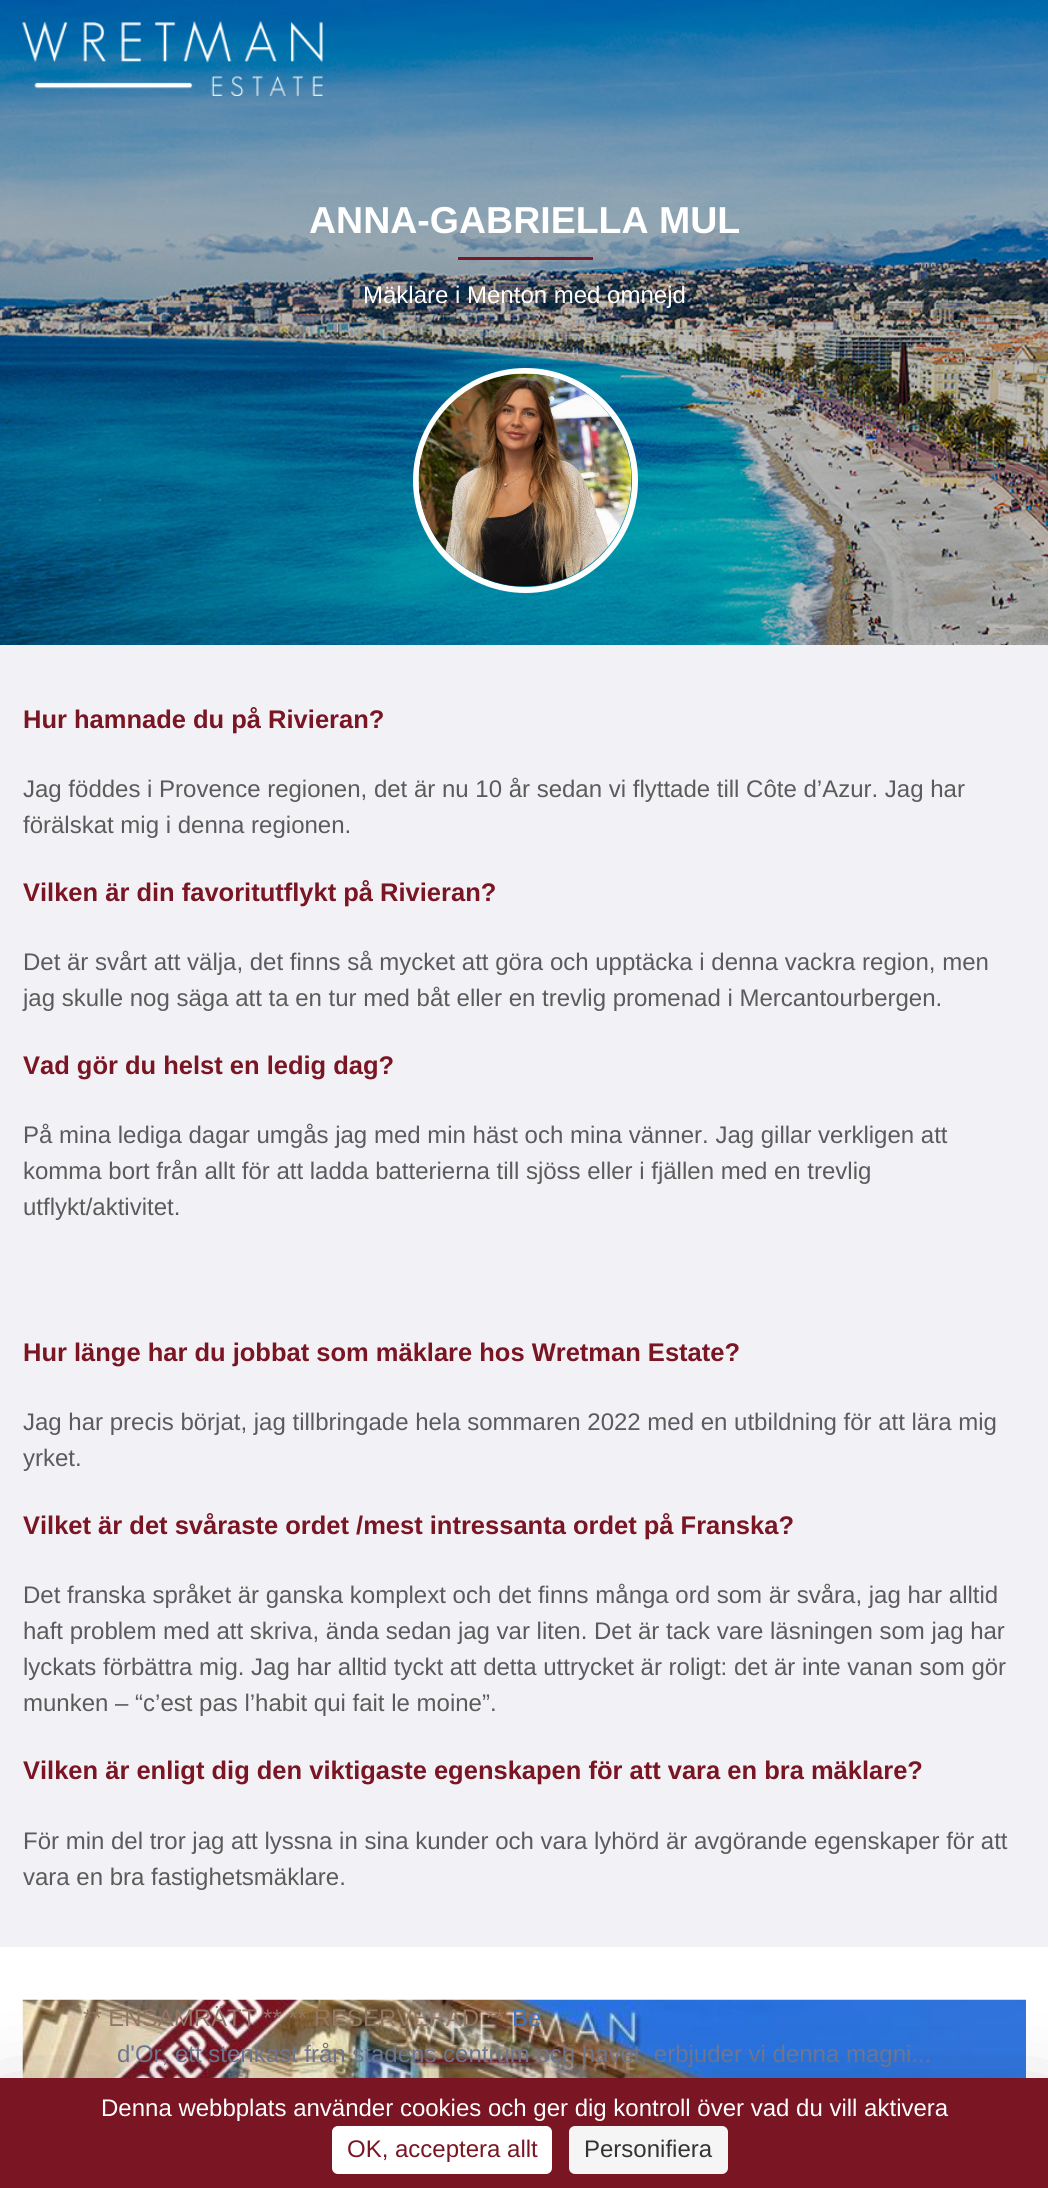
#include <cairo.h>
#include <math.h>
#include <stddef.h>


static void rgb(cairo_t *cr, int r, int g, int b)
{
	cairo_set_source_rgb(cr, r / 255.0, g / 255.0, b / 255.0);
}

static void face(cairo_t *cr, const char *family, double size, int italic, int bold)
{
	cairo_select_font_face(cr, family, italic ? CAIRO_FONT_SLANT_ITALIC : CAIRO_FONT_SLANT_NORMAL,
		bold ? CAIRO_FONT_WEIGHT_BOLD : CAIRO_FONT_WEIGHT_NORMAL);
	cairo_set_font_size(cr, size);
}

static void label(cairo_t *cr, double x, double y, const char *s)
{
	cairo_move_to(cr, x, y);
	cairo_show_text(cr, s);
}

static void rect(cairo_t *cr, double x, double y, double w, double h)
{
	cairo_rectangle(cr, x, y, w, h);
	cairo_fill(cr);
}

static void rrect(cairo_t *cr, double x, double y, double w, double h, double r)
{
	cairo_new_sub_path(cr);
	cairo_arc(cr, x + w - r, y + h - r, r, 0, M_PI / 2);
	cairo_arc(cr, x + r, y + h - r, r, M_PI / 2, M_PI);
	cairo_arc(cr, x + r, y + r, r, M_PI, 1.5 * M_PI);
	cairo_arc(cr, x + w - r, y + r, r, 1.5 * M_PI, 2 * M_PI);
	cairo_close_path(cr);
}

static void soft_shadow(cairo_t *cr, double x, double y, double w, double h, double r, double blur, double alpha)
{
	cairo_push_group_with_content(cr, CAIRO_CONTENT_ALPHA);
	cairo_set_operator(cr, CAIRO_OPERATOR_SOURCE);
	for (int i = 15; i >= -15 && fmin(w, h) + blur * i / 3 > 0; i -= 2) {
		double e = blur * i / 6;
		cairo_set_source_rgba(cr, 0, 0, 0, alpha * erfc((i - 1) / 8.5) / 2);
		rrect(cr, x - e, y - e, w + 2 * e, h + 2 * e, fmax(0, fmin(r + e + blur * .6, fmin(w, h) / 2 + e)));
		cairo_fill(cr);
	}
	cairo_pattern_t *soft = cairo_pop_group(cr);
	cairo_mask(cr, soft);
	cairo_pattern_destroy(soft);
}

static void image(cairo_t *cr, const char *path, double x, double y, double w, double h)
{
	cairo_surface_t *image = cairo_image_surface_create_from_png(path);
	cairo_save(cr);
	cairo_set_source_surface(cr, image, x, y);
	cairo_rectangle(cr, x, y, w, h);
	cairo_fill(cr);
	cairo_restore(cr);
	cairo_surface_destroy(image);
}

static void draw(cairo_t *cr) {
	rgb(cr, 255, 255, 255);
	cairo_paint(cr);
	image(cr, "image1.png", 0, 0, 1048, 645);
	image(cr, "image0.png", 22, 21, 301, 75);
	face(cr, "Liberation Sans", 37.5, 0, 1);
	rgb(cr, 255, 255, 255);
	label(cr, 309, 233, "ANNA-GABRIELLA MUL");
	rgb(cr, 122, 21, 35);
	rect(cr, 458, 257, 135, 3);
	face(cr, "Liberation Sans", 24, 0, 0);
	rgb(cr, 255, 255, 255);
	label(cr, 363, 303, "Mäklare i Menton med omnejd");
	cairo_new_path(cr);
	cairo_arc(cr, 525.5, 480.5, 109.5, 0, 2 * M_PI);
	cairo_set_line_width(cr, 6);
	cairo_stroke(cr);
	image(cr, "image2.png", 418, 373, 214, 214);
	rgb(cr, 242, 242, 246);
	rect(cr, 0, 645, 1048, 1302);
	face(cr, "Liberation Sans", 25.5, 0, 1);
	rgb(cr, 122, 21, 35);
	label(cr, 23, 728, "Hur hamnade du på Rivieran?");
	face(cr, "Liberation Sans", 24, 0, 0);
	rgb(cr, 91, 91, 91);
	label(cr, 23, 797, "Jag föddes i Provence regionen, det är nu 10 år sedan vi flyttade till Côte d’Azur. Jag har");
	label(cr, 23, 833, "förälskat mig i denna regionen.");
	face(cr, "Liberation Sans", 25.5, 0, 1);
	rgb(cr, 122, 21, 35);
	label(cr, 23, 901, "Vilken är din favoritutflykt på Rivieran?");
	face(cr, "Liberation Sans", 24, 0, 0);
	rgb(cr, 91, 91, 91);
	label(cr, 23, 970, "Det är svårt att välja, det finns så mycket att göra och upptäcka i denna vackra region, men");
	label(cr, 23, 1006, "jag skulle nog säga att ta en tur med båt eller en trevlig promenad i Mercantourbergen.");
	face(cr, "Liberation Sans", 25.5, 0, 1);
	rgb(cr, 122, 21, 35);
	label(cr, 23, 1074, "Vad gör du helst en ledig dag?");
	face(cr, "Liberation Sans", 24, 0, 0);
	rgb(cr, 91, 91, 91);
	label(cr, 23, 1143, "På mina lediga dagar umgås jag med min häst och mina vänner. Jag gillar verkligen att");
	label(cr, 23, 1179, "komma bort från allt för att ladda batterierna till sjöss eller i fjällen med en trevlig");
	label(cr, 23, 1215, "utflykt/aktivitet.");
	face(cr, "Liberation Sans", 25.5, 0, 1);
	rgb(cr, 122, 21, 35);
	label(cr, 23, 1361, "Hur länge har du jobbat som mäklare hos Wretman Estate?");
	face(cr, "Liberation Sans", 24, 0, 0);
	rgb(cr, 91, 91, 91);
	label(cr, 23, 1430, "Jag har precis börjat, jag tillbringade hela sommaren 2022 med en utbildning för att lära mig");
	label(cr, 23, 1466, "yrket.");
	face(cr, "Liberation Sans", 25.5, 0, 1);
	rgb(cr, 122, 21, 35);
	label(cr, 23, 1534, "Vilket är det svåraste ordet /mest intressanta ordet på Franska?");
	face(cr, "Liberation Sans", 24, 0, 0);
	rgb(cr, 91, 91, 91);
	label(cr, 23, 1603, "Det franska språket är ganska komplext och det finns många ord som är svåra, jag har alltid");
	label(cr, 23, 1639, "haft problem med att skriva, ända sedan jag var liten. Det är tack vare läsningen som jag har");
	label(cr, 23, 1675, "lyckats förbättra mig. Jag har alltid tyckt att detta uttrycket är roligt: det är inte vanan som gör");
	label(cr, 23, 1711, "munken – “c’est pas l’habit qui fait le moine”.");
	face(cr, "Liberation Sans", 25.5, 0, 1);
	rgb(cr, 122, 21, 35);
	label(cr, 23, 1779, "Vilken är enligt dig den viktigaste egenskapen för att vara en bra mäklare?");
	face(cr, "Liberation Sans", 24, 0, 0);
	rgb(cr, 91, 91, 91);
	label(cr, 23, 1849, "För min del tror jag att lyssna in sina kunder och vara lyhörd är avgörande egenskaper för att");
	label(cr, 23, 1885, "vara en bra fastighetsmäklare.");
	image(cr, "image3.png", 22, 1999, 1004, 79);
	rgb(cr, 148, 118, 100);
	label(cr, 83, 2026, "** ENSAMRÄTT ** ** RESERVERAD **");
	rgb(cr, 61, 117, 204);
	label(cr, 512, 2026, "Be");
	rgb(cr, 112, 120, 147);
	label(cr, 117, 2062, "d'Or, ett stenkast från stadens centrum och havet, erbjuder vi denna magni...");
	rgb(cr, 0, 0, 0);
	soft_shadow(cr, 0, 2108, 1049, 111, 0, 45, 0.25);
	rgb(cr, 122, 21, 35);
	rect(cr, 0, 2078, 1048, 110);
	rgb(cr, 255, 255, 255);
	label(cr, 101, 2116, "Denna webbplats använder cookies och ger dig kontroll över vad du vill aktivera");
	rrect(cr, 332, 2126, 220, 48, 6);
	cairo_fill(cr);
	rgb(cr, 122, 21, 35);
	label(cr, 347, 2157, "OK, acceptera allt");
	rgb(cr, 245, 245, 245);
	rrect(cr, 569, 2126, 159, 48, 6);
	cairo_fill(cr);
	rgb(cr, 51, 51, 51);
	label(cr, 584, 2157, "Personifiera");
}

int main(void) {
	cairo_surface_t *surface = cairo_image_surface_create(CAIRO_FORMAT_RGB24, 1048, 2188);
	cairo_t *cr = cairo_create(surface);
	cairo_font_options_t *options = cairo_font_options_create();
	cairo_font_options_set_hint_metrics(options, CAIRO_HINT_METRICS_OFF);
	cairo_font_options_set_hint_style(options, CAIRO_HINT_STYLE_NONE);
	cairo_set_font_options(cr, options);
	cairo_set_miter_limit(cr, 4);
	draw(cr);
	cairo_surface_write_to_png(surface, "render.png");
	cairo_font_options_destroy(options);
	cairo_destroy(cr);
	cairo_surface_destroy(surface);
	return 0;
}
